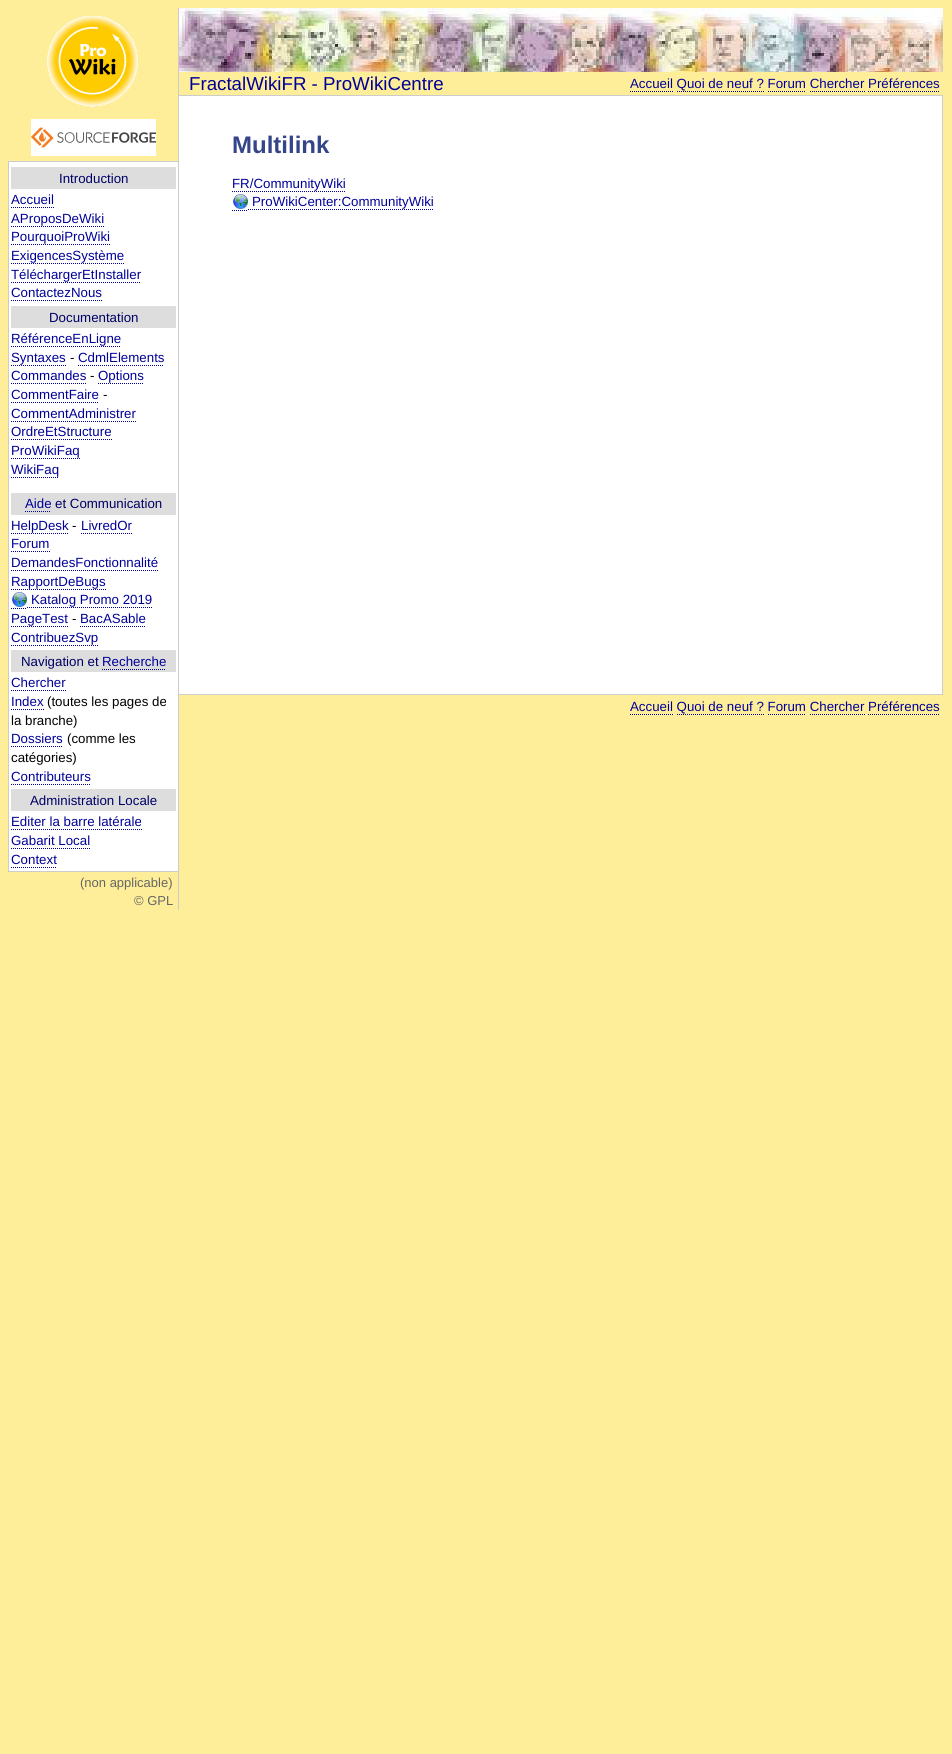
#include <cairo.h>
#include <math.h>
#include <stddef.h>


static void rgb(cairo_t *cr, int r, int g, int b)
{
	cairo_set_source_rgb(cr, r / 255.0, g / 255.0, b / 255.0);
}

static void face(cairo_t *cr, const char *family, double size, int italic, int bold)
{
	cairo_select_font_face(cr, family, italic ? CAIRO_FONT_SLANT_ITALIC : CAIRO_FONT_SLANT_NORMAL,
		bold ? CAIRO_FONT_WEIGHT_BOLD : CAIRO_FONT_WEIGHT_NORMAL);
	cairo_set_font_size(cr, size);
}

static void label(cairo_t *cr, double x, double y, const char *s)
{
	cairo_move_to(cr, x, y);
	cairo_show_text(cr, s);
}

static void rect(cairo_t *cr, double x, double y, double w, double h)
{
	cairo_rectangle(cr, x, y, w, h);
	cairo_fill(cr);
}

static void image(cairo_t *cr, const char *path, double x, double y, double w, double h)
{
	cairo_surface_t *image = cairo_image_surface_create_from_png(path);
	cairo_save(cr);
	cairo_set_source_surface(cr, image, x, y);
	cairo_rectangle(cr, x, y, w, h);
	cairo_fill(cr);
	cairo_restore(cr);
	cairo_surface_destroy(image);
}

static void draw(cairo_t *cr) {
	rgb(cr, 255, 238, 153);
	cairo_paint(cr);
	image(cr, "image0.png", 47, 16, 91, 91);
	image(cr, "image1.png", 31, 119, 125, 37);
	rgb(cr, 255, 255, 255);
	rect(cr, 9, 162, 169, 709);
	rgb(cr, 204, 204, 204);
	rect(cr, 8, 161, 170, 1);
	rect(cr, 8, 871, 170, 1);
	rect(cr, 8, 161, 1, 711);
	rgb(cr, 221, 221, 221);
	rect(cr, 11, 167, 165, 22);
	face(cr, "Liberation Sans", 13.3, 0, 0);
	rgb(cr, 0, 0, 102);
	label(cr, 59, 183, "Introduction");
	rgb(cr, 0, 0, 153);
	label(cr, 11, 204, "Accueil");
	cairo_new_path(cr);
	cairo_move_to(cr, 11, 207.5);
	cairo_line_to(cr, 54, 207.5);
	cairo_set_line_width(cr, 1);
	cairo_set_dash(cr, (double[]){1, 1}, 2, 0);
	cairo_stroke(cr);
	label(cr, 11, 223, "AProposDeWiki");
	cairo_new_path(cr);
	cairo_move_to(cr, 11, 226.5);
	cairo_line_to(cr, 104, 226.5);
	cairo_stroke(cr);
	label(cr, 11, 241, "PourquoiProWiki");
	cairo_new_path(cr);
	cairo_move_to(cr, 11, 244.5);
	cairo_line_to(cr, 110, 244.5);
	cairo_stroke(cr);
	label(cr, 11, 260, "ExigencesSystème");
	cairo_new_path(cr);
	cairo_move_to(cr, 11, 263.5);
	cairo_line_to(cr, 124, 263.5);
	cairo_stroke(cr);
	label(cr, 11, 279, "TéléchargerEtInstaller");
	cairo_new_path(cr);
	cairo_move_to(cr, 11, 282.5);
	cairo_line_to(cr, 141, 282.5);
	cairo_stroke(cr);
	label(cr, 11, 297, "ContactezNous");
	cairo_new_path(cr);
	cairo_move_to(cr, 11, 300.5);
	cairo_line_to(cr, 102, 300.5);
	cairo_stroke(cr);
	rgb(cr, 221, 221, 221);
	rect(cr, 11, 306, 165, 22);
	rgb(cr, 0, 0, 102);
	label(cr, 49, 322, "Documentation");
	rgb(cr, 0, 0, 153);
	label(cr, 11, 343, "RéférenceEnLigne");
	cairo_new_path(cr);
	cairo_move_to(cr, 11, 346.5);
	cairo_line_to(cr, 121, 346.5);
	cairo_stroke(cr);
	label(cr, 11, 362, "Syntaxes");
	cairo_new_path(cr);
	cairo_move_to(cr, 11, 365.5);
	cairo_line_to(cr, 66, 365.5);
	cairo_stroke(cr);
	rgb(cr, 0, 0, 0);
	label(cr, 70, 362, "-");
	rgb(cr, 0, 0, 153);
	label(cr, 78, 362, "CdmlElements");
	cairo_new_path(cr);
	cairo_move_to(cr, 78, 365.5);
	cairo_line_to(cr, 164, 365.5);
	cairo_stroke(cr);
	label(cr, 11, 380, "Commandes");
	cairo_new_path(cr);
	cairo_move_to(cr, 11, 383.5);
	cairo_line_to(cr, 87, 383.5);
	cairo_stroke(cr);
	rgb(cr, 0, 0, 0);
	label(cr, 90, 380, "-");
	rgb(cr, 0, 0, 153);
	label(cr, 98, 380, "Options");
	cairo_new_path(cr);
	cairo_move_to(cr, 98, 383.5);
	cairo_line_to(cr, 144, 383.5);
	cairo_stroke(cr);
	label(cr, 11, 399, "CommentFaire");
	cairo_new_path(cr);
	cairo_move_to(cr, 11, 402.5);
	cairo_line_to(cr, 99, 402.5);
	cairo_stroke(cr);
	rgb(cr, 0, 0, 0);
	label(cr, 103, 399, "-");
	rgb(cr, 0, 0, 153);
	label(cr, 11, 418, "CommentAdministrer");
	cairo_new_path(cr);
	cairo_move_to(cr, 11, 421.5);
	cairo_line_to(cr, 136, 421.5);
	cairo_stroke(cr);
	label(cr, 11, 436, "OrdreEtStructure");
	cairo_new_path(cr);
	cairo_move_to(cr, 11, 439.5);
	cairo_line_to(cr, 112, 439.5);
	cairo_stroke(cr);
	label(cr, 11, 455, "ProWikiFaq");
	cairo_new_path(cr);
	cairo_move_to(cr, 11, 458.5);
	cairo_line_to(cr, 80, 458.5);
	cairo_stroke(cr);
	label(cr, 11, 474, "WikiFaq");
	cairo_new_path(cr);
	cairo_move_to(cr, 11, 477.5);
	cairo_line_to(cr, 59, 477.5);
	cairo_stroke(cr);
	rgb(cr, 221, 221, 221);
	rect(cr, 11, 493, 165, 22);
	rgb(cr, 0, 0, 153);
	label(cr, 25, 508, "Aide");
	cairo_new_path(cr);
	cairo_move_to(cr, 25, 511.5);
	cairo_line_to(cr, 51, 511.5);
	cairo_stroke(cr);
	rgb(cr, 0, 0, 102);
	label(cr, 55, 508, "et Communication");
	rgb(cr, 0, 0, 153);
	label(cr, 11, 530, "HelpDesk");
	cairo_new_path(cr);
	cairo_move_to(cr, 11, 533.5);
	cairo_line_to(cr, 69, 533.5);
	cairo_stroke(cr);
	rgb(cr, 0, 0, 0);
	label(cr, 72, 530, "-");
	rgb(cr, 0, 0, 153);
	label(cr, 81, 530, "LivredOr");
	cairo_new_path(cr);
	cairo_move_to(cr, 81, 533.5);
	cairo_line_to(cr, 132, 533.5);
	cairo_stroke(cr);
	label(cr, 11, 548, "Forum");
	cairo_new_path(cr);
	cairo_move_to(cr, 11, 551.5);
	cairo_line_to(cr, 50, 551.5);
	cairo_stroke(cr);
	label(cr, 11, 567, "DemandesFonctionnalité");
	cairo_new_path(cr);
	cairo_move_to(cr, 11, 570.5);
	cairo_line_to(cr, 158, 570.5);
	cairo_stroke(cr);
	label(cr, 11, 586, "RapportDeBugs");
	cairo_new_path(cr);
	cairo_move_to(cr, 11, 589.5);
	cairo_line_to(cr, 106, 589.5);
	cairo_stroke(cr);
	image(cr, "image2.png", 12, 592, 15, 15);
	label(cr, 31, 604, "Katalog Promo 2019");
	cairo_new_path(cr);
	cairo_move_to(cr, 11, 608.5);
	cairo_line_to(cr, 27, 608.5);
	cairo_stroke(cr);
	cairo_new_path(cr);
	cairo_move_to(cr, 27, 607.5);
	cairo_line_to(cr, 152, 607.5);
	cairo_stroke(cr);
	label(cr, 11, 623, "PageTest");
	cairo_new_path(cr);
	cairo_move_to(cr, 11, 626.5);
	cairo_line_to(cr, 68, 626.5);
	cairo_stroke(cr);
	rgb(cr, 0, 0, 0);
	label(cr, 72, 623, "-");
	rgb(cr, 0, 0, 153);
	label(cr, 80, 623, "BacASable");
	cairo_new_path(cr);
	cairo_move_to(cr, 80, 626.5);
	cairo_line_to(cr, 146, 626.5);
	cairo_stroke(cr);
	label(cr, 11, 642, "ContribuezSvp");
	cairo_new_path(cr);
	cairo_move_to(cr, 11, 645.5);
	cairo_line_to(cr, 98, 645.5);
	cairo_stroke(cr);
	rgb(cr, 221, 221, 221);
	rect(cr, 11, 650, 165, 22);
	rgb(cr, 0, 0, 102);
	label(cr, 21, 666, "Navigation et");
	rgb(cr, 0, 0, 153);
	label(cr, 102, 666, "Recherche");
	cairo_new_path(cr);
	cairo_move_to(cr, 102, 669.5);
	cairo_line_to(cr, 166, 669.5);
	cairo_stroke(cr);
	label(cr, 11, 687, "Chercher");
	cairo_new_path(cr);
	cairo_move_to(cr, 11, 690.5);
	cairo_line_to(cr, 66, 690.5);
	cairo_stroke(cr);
	label(cr, 11, 706, "Index");
	cairo_new_path(cr);
	cairo_move_to(cr, 11, 709.5);
	cairo_line_to(cr, 44, 709.5);
	cairo_stroke(cr);
	rgb(cr, 0, 0, 0);
	label(cr, 47, 706, "(toutes les pages de");
	label(cr, 11, 725, "la branche)");
	rgb(cr, 0, 0, 153);
	label(cr, 11, 743, "Dossiers");
	cairo_new_path(cr);
	cairo_move_to(cr, 11, 746.5);
	cairo_line_to(cr, 63, 746.5);
	cairo_stroke(cr);
	rgb(cr, 0, 0, 0);
	label(cr, 67, 743, "(comme les");
	label(cr, 11, 762, "catégories)");
	rgb(cr, 0, 0, 153);
	label(cr, 11, 781, "Contributeurs");
	cairo_new_path(cr);
	cairo_move_to(cr, 11, 784.5);
	cairo_line_to(cr, 91, 784.5);
	cairo_stroke(cr);
	rgb(cr, 221, 221, 221);
	rect(cr, 11, 789, 165, 22);
	rgb(cr, 0, 0, 102);
	label(cr, 30, 805, "Administration Locale");
	rgb(cr, 0, 0, 153);
	label(cr, 11, 826, "Editer la barre latérale");
	cairo_new_path(cr);
	cairo_move_to(cr, 11, 829.5);
	cairo_line_to(cr, 142, 829.5);
	cairo_stroke(cr);
	label(cr, 11, 845, "Gabarit Local");
	cairo_new_path(cr);
	cairo_move_to(cr, 11, 848.5);
	cairo_line_to(cr, 90, 848.5);
	cairo_stroke(cr);
	label(cr, 11, 864, "Context");
	cairo_new_path(cr);
	cairo_move_to(cr, 11, 867.5);
	cairo_line_to(cr, 57, 867.5);
	cairo_stroke(cr);
	face(cr, "Liberation Sans", 13, 0, 0);
	rgb(cr, 102, 102, 102);
	label(cr, 80, 887, "(non applicable)");
	label(cr, 134, 905, "© GPL");
	rgb(cr, 204, 204, 204);
	rect(cr, 178, 8, 1, 902);
	image(cr, "image3.png", 179, 8, 764, 64);
	face(cr, "Liberation Sans", 18.7, 0, 0);
	rgb(cr, 0, 0, 153);
	label(cr, 189, 90, "FractalWikiFR - ProWikiCentre");
	face(cr, "Liberation Sans", 13.3, 0, 0);
	label(cr, 630, 88, "Accueil Quoi de neuf ? Forum Chercher Préférences");
	cairo_new_path(cr);
	cairo_move_to(cr, 630, 91.5);
	cairo_line_to(cr, 673, 91.5);
	cairo_stroke(cr);
	cairo_new_path(cr);
	cairo_move_to(cr, 677, 91.5);
	cairo_line_to(cr, 764, 91.5);
	cairo_stroke(cr);
	cairo_new_path(cr);
	cairo_move_to(cr, 768, 91.5);
	cairo_line_to(cr, 806, 91.5);
	cairo_stroke(cr);
	cairo_new_path(cr);
	cairo_move_to(cr, 810, 91.5);
	cairo_line_to(cr, 865, 91.5);
	cairo_stroke(cr);
	cairo_new_path(cr);
	cairo_move_to(cr, 868, 91.5);
	cairo_line_to(cr, 940, 91.5);
	cairo_stroke(cr);
	rgb(cr, 255, 255, 255);
	rect(cr, 179, 96, 763, 598);
	rgb(cr, 204, 204, 204);
	rect(cr, 179, 95, 764, 1);
	rect(cr, 942, 95, 1, 600);
	rect(cr, 179, 694, 764, 1);
	face(cr, "Liberation Sans", 24, 0, 1);
	rgb(cr, 53, 69, 138);
	label(cr, 232, 153, "Multilink");
	face(cr, "Liberation Sans", 13.3, 0, 0);
	rgb(cr, 0, 0, 153);
	label(cr, 232, 188, "FR/CommunityWiki");
	cairo_new_path(cr);
	cairo_move_to(cr, 232, 191.5);
	cairo_line_to(cr, 346, 191.5);
	cairo_stroke(cr);
	image(cr, "image2.png", 233, 194, 15, 15);
	label(cr, 252, 206, "ProWikiCenter:CommunityWiki");
	cairo_new_path(cr);
	cairo_move_to(cr, 232, 210.5);
	cairo_line_to(cr, 248, 210.5);
	cairo_stroke(cr);
	cairo_new_path(cr);
	cairo_move_to(cr, 248, 209.5);
	cairo_line_to(cr, 434, 209.5);
	cairo_stroke(cr);
	label(cr, 630, 711, "Accueil Quoi de neuf ? Forum Chercher Préférences");
	cairo_new_path(cr);
	cairo_move_to(cr, 630, 714.5);
	cairo_line_to(cr, 673, 714.5);
	cairo_stroke(cr);
	cairo_new_path(cr);
	cairo_move_to(cr, 677, 714.5);
	cairo_line_to(cr, 764, 714.5);
	cairo_stroke(cr);
	cairo_new_path(cr);
	cairo_move_to(cr, 768, 714.5);
	cairo_line_to(cr, 806, 714.5);
	cairo_stroke(cr);
	cairo_new_path(cr);
	cairo_move_to(cr, 810, 714.5);
	cairo_line_to(cr, 865, 714.5);
	cairo_stroke(cr);
	cairo_new_path(cr);
	cairo_move_to(cr, 868, 714.5);
	cairo_line_to(cr, 940, 714.5);
	cairo_stroke(cr);
}

int main(void) {
	cairo_surface_t *surface = cairo_image_surface_create(CAIRO_FORMAT_RGB24, 952, 1754);
	cairo_t *cr = cairo_create(surface);
	cairo_font_options_t *options = cairo_font_options_create();
	cairo_font_options_set_hint_metrics(options, CAIRO_HINT_METRICS_OFF);
	cairo_font_options_set_hint_style(options, CAIRO_HINT_STYLE_NONE);
	cairo_set_font_options(cr, options);
	cairo_set_miter_limit(cr, 4);
	draw(cr);
	cairo_surface_write_to_png(surface, "render.png");
	cairo_font_options_destroy(options);
	cairo_destroy(cr);
	cairo_surface_destroy(surface);
	return 0;
}
